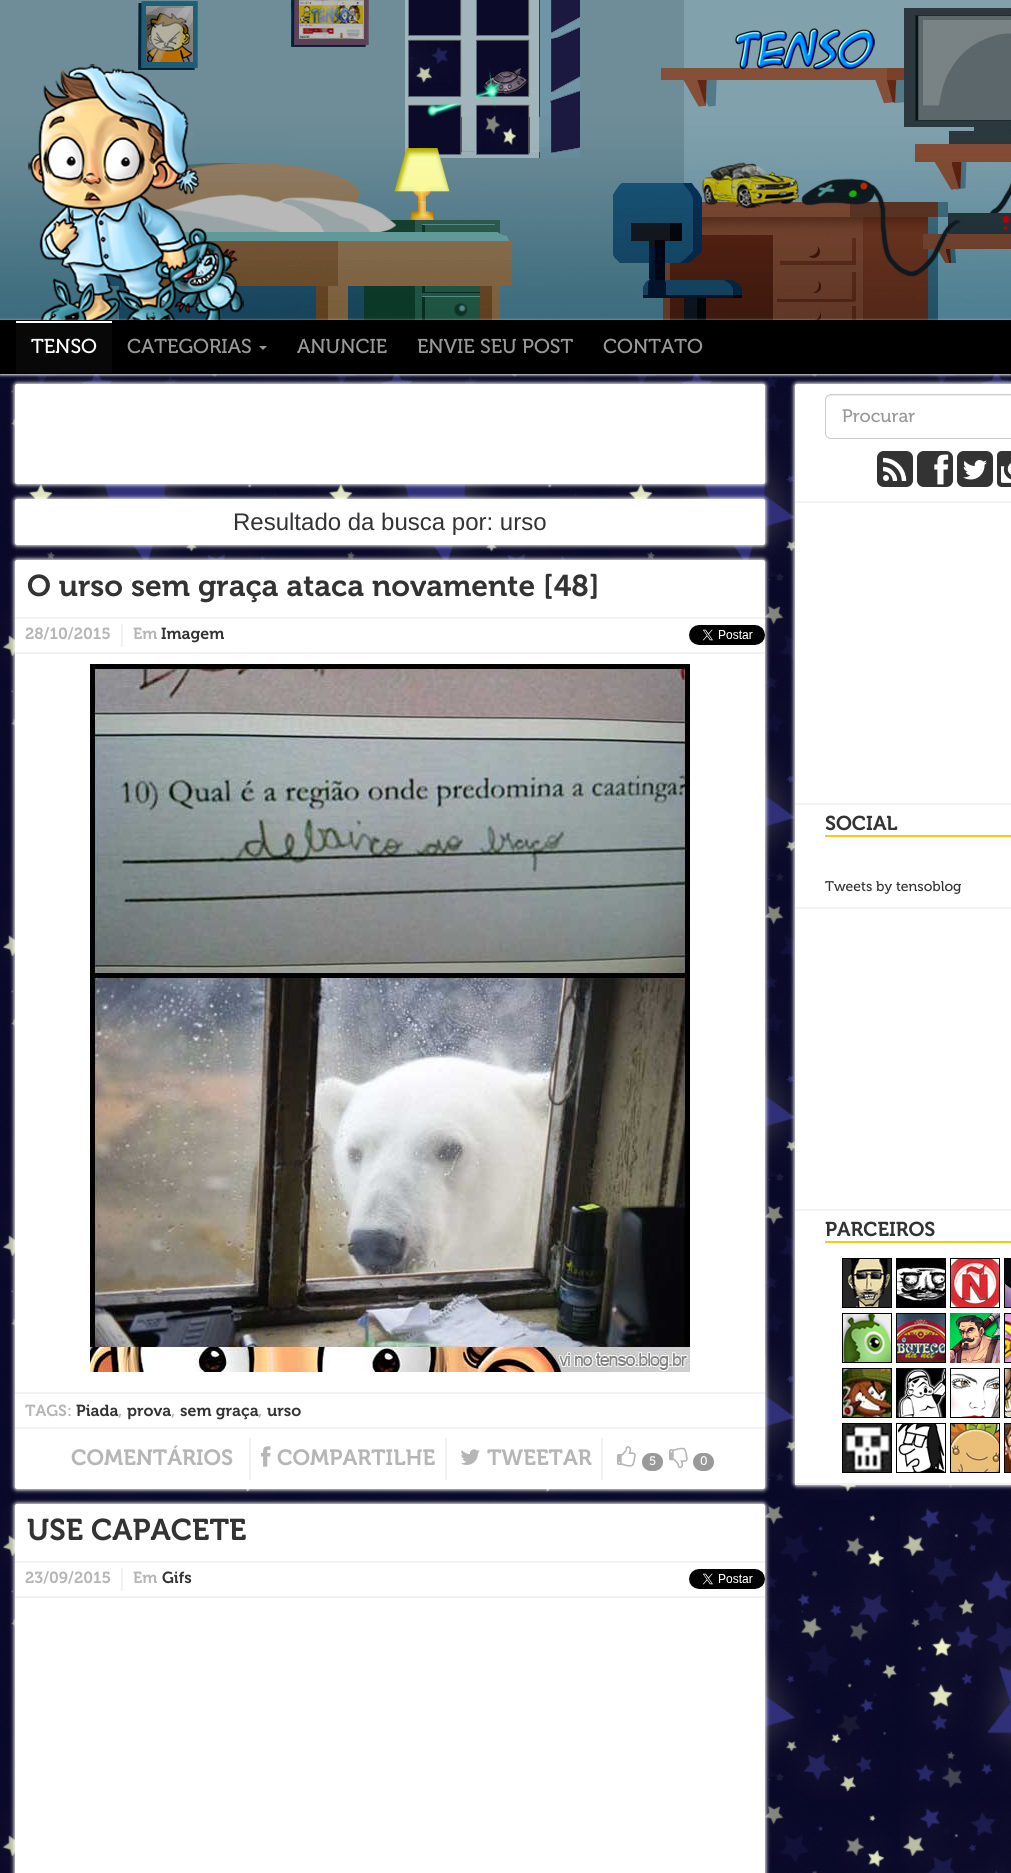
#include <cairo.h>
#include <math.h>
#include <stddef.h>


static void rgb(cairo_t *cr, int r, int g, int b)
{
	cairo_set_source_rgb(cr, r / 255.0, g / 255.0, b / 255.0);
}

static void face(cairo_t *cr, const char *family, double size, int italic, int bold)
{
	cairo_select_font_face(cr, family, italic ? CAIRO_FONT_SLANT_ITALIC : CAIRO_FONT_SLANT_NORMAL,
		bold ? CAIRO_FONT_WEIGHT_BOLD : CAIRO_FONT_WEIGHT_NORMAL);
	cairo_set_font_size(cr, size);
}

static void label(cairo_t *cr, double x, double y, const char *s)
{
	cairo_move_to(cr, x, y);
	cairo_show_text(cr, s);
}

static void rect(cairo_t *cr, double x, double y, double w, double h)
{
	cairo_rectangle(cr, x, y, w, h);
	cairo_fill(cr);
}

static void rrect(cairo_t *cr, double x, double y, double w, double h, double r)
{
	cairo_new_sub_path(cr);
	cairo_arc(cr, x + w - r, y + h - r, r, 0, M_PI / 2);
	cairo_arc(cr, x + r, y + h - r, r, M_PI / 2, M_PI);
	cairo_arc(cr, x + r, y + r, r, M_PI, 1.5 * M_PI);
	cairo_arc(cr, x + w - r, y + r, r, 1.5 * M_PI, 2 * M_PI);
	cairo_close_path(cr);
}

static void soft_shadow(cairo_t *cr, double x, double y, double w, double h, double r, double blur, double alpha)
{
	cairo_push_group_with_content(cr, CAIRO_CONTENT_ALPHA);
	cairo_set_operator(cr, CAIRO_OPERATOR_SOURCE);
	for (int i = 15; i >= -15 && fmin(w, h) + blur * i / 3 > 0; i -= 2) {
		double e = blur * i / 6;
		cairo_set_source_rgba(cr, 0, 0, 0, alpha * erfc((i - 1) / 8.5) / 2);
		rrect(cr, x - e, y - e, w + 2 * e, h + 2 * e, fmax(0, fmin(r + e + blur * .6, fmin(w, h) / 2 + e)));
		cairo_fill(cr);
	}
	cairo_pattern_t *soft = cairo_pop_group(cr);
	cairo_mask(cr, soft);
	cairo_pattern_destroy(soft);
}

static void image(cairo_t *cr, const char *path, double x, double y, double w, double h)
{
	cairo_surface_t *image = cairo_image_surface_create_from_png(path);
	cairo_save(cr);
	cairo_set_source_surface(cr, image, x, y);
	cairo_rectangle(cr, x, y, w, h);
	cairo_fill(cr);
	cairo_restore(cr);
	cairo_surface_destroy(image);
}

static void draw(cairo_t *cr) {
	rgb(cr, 255, 255, 255);
	cairo_paint(cr);
	image(cr, "image0.png", 0, 374, 1011, 1499);
	image(cr, "image1.png", 0, 0, 104, 320);
	image(cr, "image2.png", 104, 0, 907, 320);
	image(cr, "image3.png", 735, 28, 140, 42);
	image(cr, "image4.png", 28, 64, 216, 256);
	soft_shadow(cr, 0, 321, 1011, 54, 0, 1.5, 1);
	rgb(cr, 0, 0, 0);
	rect(cr, 0, 320, 1011, 54);
	rgb(cr, 255, 255, 255);
	rect(cr, 16, 321, 96, 2);
	rgb(cr, 8, 8, 8);
	rect(cr, 16, 323, 96, 50);
	face(cr, "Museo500", 20, 0, 0);
	rgb(cr, 255, 255, 255);
	label(cr, 31, 353, "TENSO");
	rgb(cr, 153, 153, 153);
	label(cr, 127, 353, "CATEGORIAS");
	cairo_new_path(cr);
	cairo_move_to(cr, 259, 346);
	cairo_line_to(cr, 267, 346);
	cairo_line_to(cr, 263, 350);
	cairo_close_path(cr);
	cairo_fill(cr);
	label(cr, 297, 353, "ANUNCIE");
	label(cr, 417, 353, "ENVIE SEU POST");
	label(cr, 603, 353, "CONTATO");
	rgb(cr, 255, 255, 255);
	soft_shadow(cr, 14, 383, 752, 102, 3, 2, 1);
	rgb(cr, 255, 255, 255);
	rrect(cr, 15, 384, 750, 100, 2);
	cairo_fill(cr);
	rgb(cr, 255, 255, 255);
	soft_shadow(cr, 14, 498, 752, 48, 3, 2, 1);
	rgb(cr, 255, 255, 255);
	rrect(cr, 15, 499, 750, 46, 2);
	cairo_fill(cr);
	face(cr, "Liberation Sans", 24, 0, 0);
	rgb(cr, 51, 51, 51);
	label(cr, 233, 530, "Resultado da busca por: urso");
	rgb(cr, 255, 255, 255);
	soft_shadow(cr, 14, 559, 752, 931, 3, 2, 1);
	rgb(cr, 255, 255, 255);
	rrect(cr, 15, 560, 750, 929, 2);
	cairo_fill(cr);
	face(cr, "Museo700", 30, 0, 0);
	rgb(cr, 51, 51, 51);
	label(cr, 27, 596, "O urso sem graça ataca novamente [48]");
	rgb(cr, 242, 242, 242);
	rect(cr, 15, 617, 750, 2);
	rect(cr, 15, 652, 750, 2);
	rect(cr, 121, 624, 2, 23);
	face(cr, "Museo700", 16, 0, 0);
	rgb(cr, 182, 182, 182);
	label(cr, 25, 639, "28/10/2015");
	label(cr, 133, 639, "Em");
	rgb(cr, 51, 51, 51);
	label(cr, 161, 639, "Imagem");
	image(cr, "image5.png", 689, 625, 76, 20);
	image(cr, "image6.png", 90, 664, 600, 708);
	rgb(cr, 242, 242, 242);
	rect(cr, 15, 1392, 750, 2);
	rgb(cr, 182, 182, 182);
	label(cr, 25, 1416, "TAGS:");
	rgb(cr, 51, 51, 51);
	label(cr, 76, 1416, "Piada");
	rgb(cr, 182, 182, 182);
	label(cr, 118, 1416, ",");
	rgb(cr, 51, 51, 51);
	label(cr, 127, 1416, "prova");
	rgb(cr, 182, 182, 182);
	label(cr, 171, 1416, ",");
	rgb(cr, 51, 51, 51);
	label(cr, 180, 1416, "sem graça");
	rgb(cr, 182, 182, 182);
	label(cr, 258, 1416, ",");
	rgb(cr, 51, 51, 51);
	label(cr, 267, 1416, "urso");
	rgb(cr, 242, 242, 242);
	rect(cr, 15, 1427, 750, 2);
	face(cr, "Museo700", 22, 0, 0);
	rgb(cr, 182, 182, 182);
	label(cr, 71, 1465, "COMENTÁRIOS");
	rgb(cr, 242, 242, 242);
	rect(cr, 249, 1438, 2, 42);
	rect(cr, 445, 1438, 2, 42);
	image(cr, "image7.png", 261, 1446, 10, 21);
	rgb(cr, 182, 182, 182);
	label(cr, 277, 1465, "COMPARTILHE");
	rgb(cr, 242, 242, 242);
	rect(cr, 601, 1438, 2, 42);
	image(cr, "image8.png", 460, 1449, 20, 16);
	rgb(cr, 182, 182, 182);
	label(cr, 487, 1465, "TWEETAR");
	image(cr, "image9.png", 617, 1446, 19, 21);
	rgb(cr, 153, 153, 153);
	rrect(cr, 642, 1453, 21, 18, 9);
	cairo_fill(cr);
	face(cr, "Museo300", 12, 0, 1);
	rgb(cr, 255, 255, 255);
	label(cr, 649, 1465, "5");
	image(cr, "image10.png", 669, 1447, 19, 22);
	rgb(cr, 153, 153, 153);
	rrect(cr, 693, 1453, 21, 18, 9);
	cairo_fill(cr);
	rgb(cr, 255, 255, 255);
	label(cr, 700, 1465, "0");
	rgb(cr, 255, 255, 255);
	soft_shadow(cr, 14, 1503, 752, 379, 3, 2, 1);
	rgb(cr, 255, 255, 255);
	rrect(cr, 15, 1504, 750, 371, 2);
	cairo_fill(cr);
	face(cr, "Museo700", 30, 0, 0);
	rgb(cr, 51, 51, 51);
	label(cr, 27, 1540, "USE CAPACETE");
	rgb(cr, 242, 242, 242);
	rect(cr, 15, 1561, 750, 2);
	rect(cr, 15, 1596, 750, 2);
	rect(cr, 121, 1568, 2, 23);
	face(cr, "Museo700", 16, 0, 0);
	rgb(cr, 182, 182, 182);
	label(cr, 25, 1583, "23/09/2015");
	label(cr, 133, 1583, "Em");
	rgb(cr, 51, 51, 51);
	label(cr, 162, 1583, "Gifs");
	image(cr, "image5.png", 689, 1569, 76, 20);
	rgb(cr, 255, 255, 255);
	soft_shadow(cr, 794, 383, 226, 1103, 3, 2, 1);
	rgb(cr, 255, 255, 255);
	rrect(cr, 795, 384, 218, 1101, 2);
	cairo_fill(cr);
	rgb(cr, 242, 242, 242);
	rect(cr, 795, 501, 216, 2);
	rgb(cr, 236, 236, 236);
	cairo_new_path(cr);
	cairo_move_to(cr, 831, 396);
	cairo_line_to(cr, 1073, 396);
	cairo_line_to(cr, 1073, 395);
	cairo_line_to(cr, 831, 395);
	cairo_curve_to(cr, 828, 395, 826, 397, 826, 400);
	cairo_line_to(cr, 826, 401);
	cairo_curve_to(cr, 826, 398, 828, 396, 831, 396);
	cairo_close_path(cr);
	cairo_fill(cr);
	cairo_new_path(cr);
	cairo_move_to(cr, 831, 394.5);
	cairo_line_to(cr, 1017.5, 394.5);
	cairo_line_to(cr, 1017.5, 438.5);
	cairo_line_to(cr, 831, 438.5);
	cairo_curve_to(cr, 828, 438.5, 825.5, 436, 825.5, 433);
	cairo_line_to(cr, 825.5, 400);
	cairo_curve_to(cr, 825.5, 397, 828, 394.5, 831, 394.5);
	cairo_close_path(cr);
	rgb(cr, 204, 204, 204);
	cairo_set_line_width(cr, 1);
	cairo_stroke(cr);
	face(cr, "Museo500", 18, 0, 0);
	rgb(cr, 153, 153, 153);
	label(cr, 842, 422, "Procurar");
	image(cr, "image11.png", 877, 451, 36, 36);
	image(cr, "image12.png", 917, 451, 36, 36);
	image(cr, "image13.png", 957, 451, 36, 36);
	image(cr, "image14.png", 997, 451, 14, 36);
	rgb(cr, 242, 242, 242);
	rect(cr, 795, 803, 216, 2);
	rect(cr, 795, 907, 216, 2);
	rgb(cr, 254, 202, 4);
	rect(cr, 825, 835, 186, 2);
	face(cr, "Museo700", 20, 0, 0);
	rgb(cr, 51, 51, 51);
	label(cr, 825, 830, "SOCIAL");
	face(cr, "Museo500", 14, 0, 0);
	label(cr, 825, 891, "Tweets by tensoblog");
	rgb(cr, 242, 242, 242);
	rect(cr, 795, 1209, 216, 2);
	rect(cr, 795, 1483, 216, 2);
	rgb(cr, 254, 202, 4);
	rect(cr, 825, 1241, 186, 2);
	face(cr, "Museo700", 20, 0, 0);
	rgb(cr, 51, 51, 51);
	label(cr, 825, 1236, "PARCEIROS");
	image(cr, "image15.png", 842, 1258, 50, 50);
	image(cr, "image16.png", 896, 1258, 50, 50);
	image(cr, "image17.png", 950, 1258, 50, 50);
	image(cr, "image18.png", 1004, 1258, 7, 50);
	image(cr, "image19.png", 842, 1313, 50, 50);
	image(cr, "image20.png", 896, 1313, 50, 50);
	image(cr, "image21.png", 950, 1313, 50, 50);
	image(cr, "image22.png", 1004, 1313, 7, 50);
	image(cr, "image23.png", 842, 1368, 50, 50);
	image(cr, "image24.png", 896, 1368, 50, 50);
	image(cr, "image25.png", 950, 1368, 50, 50);
	image(cr, "image26.png", 1004, 1368, 7, 50);
	image(cr, "image27.png", 842, 1423, 50, 50);
	image(cr, "image28.png", 896, 1423, 50, 50);
	image(cr, "image29.png", 950, 1423, 50, 50);
	image(cr, "image30.png", 1004, 1423, 7, 50);
}

int main(void) {
	cairo_surface_t *surface = cairo_image_surface_create(CAIRO_FORMAT_RGB24, 1011, 1873);
	cairo_t *cr = cairo_create(surface);
	cairo_font_options_t *options = cairo_font_options_create();
	cairo_font_options_set_hint_metrics(options, CAIRO_HINT_METRICS_OFF);
	cairo_font_options_set_hint_style(options, CAIRO_HINT_STYLE_NONE);
	cairo_set_font_options(cr, options);
	cairo_set_miter_limit(cr, 4);
	draw(cr);
	cairo_surface_write_to_png(surface, "render.png");
	cairo_font_options_destroy(options);
	cairo_destroy(cr);
	cairo_surface_destroy(surface);
	return 0;
}
